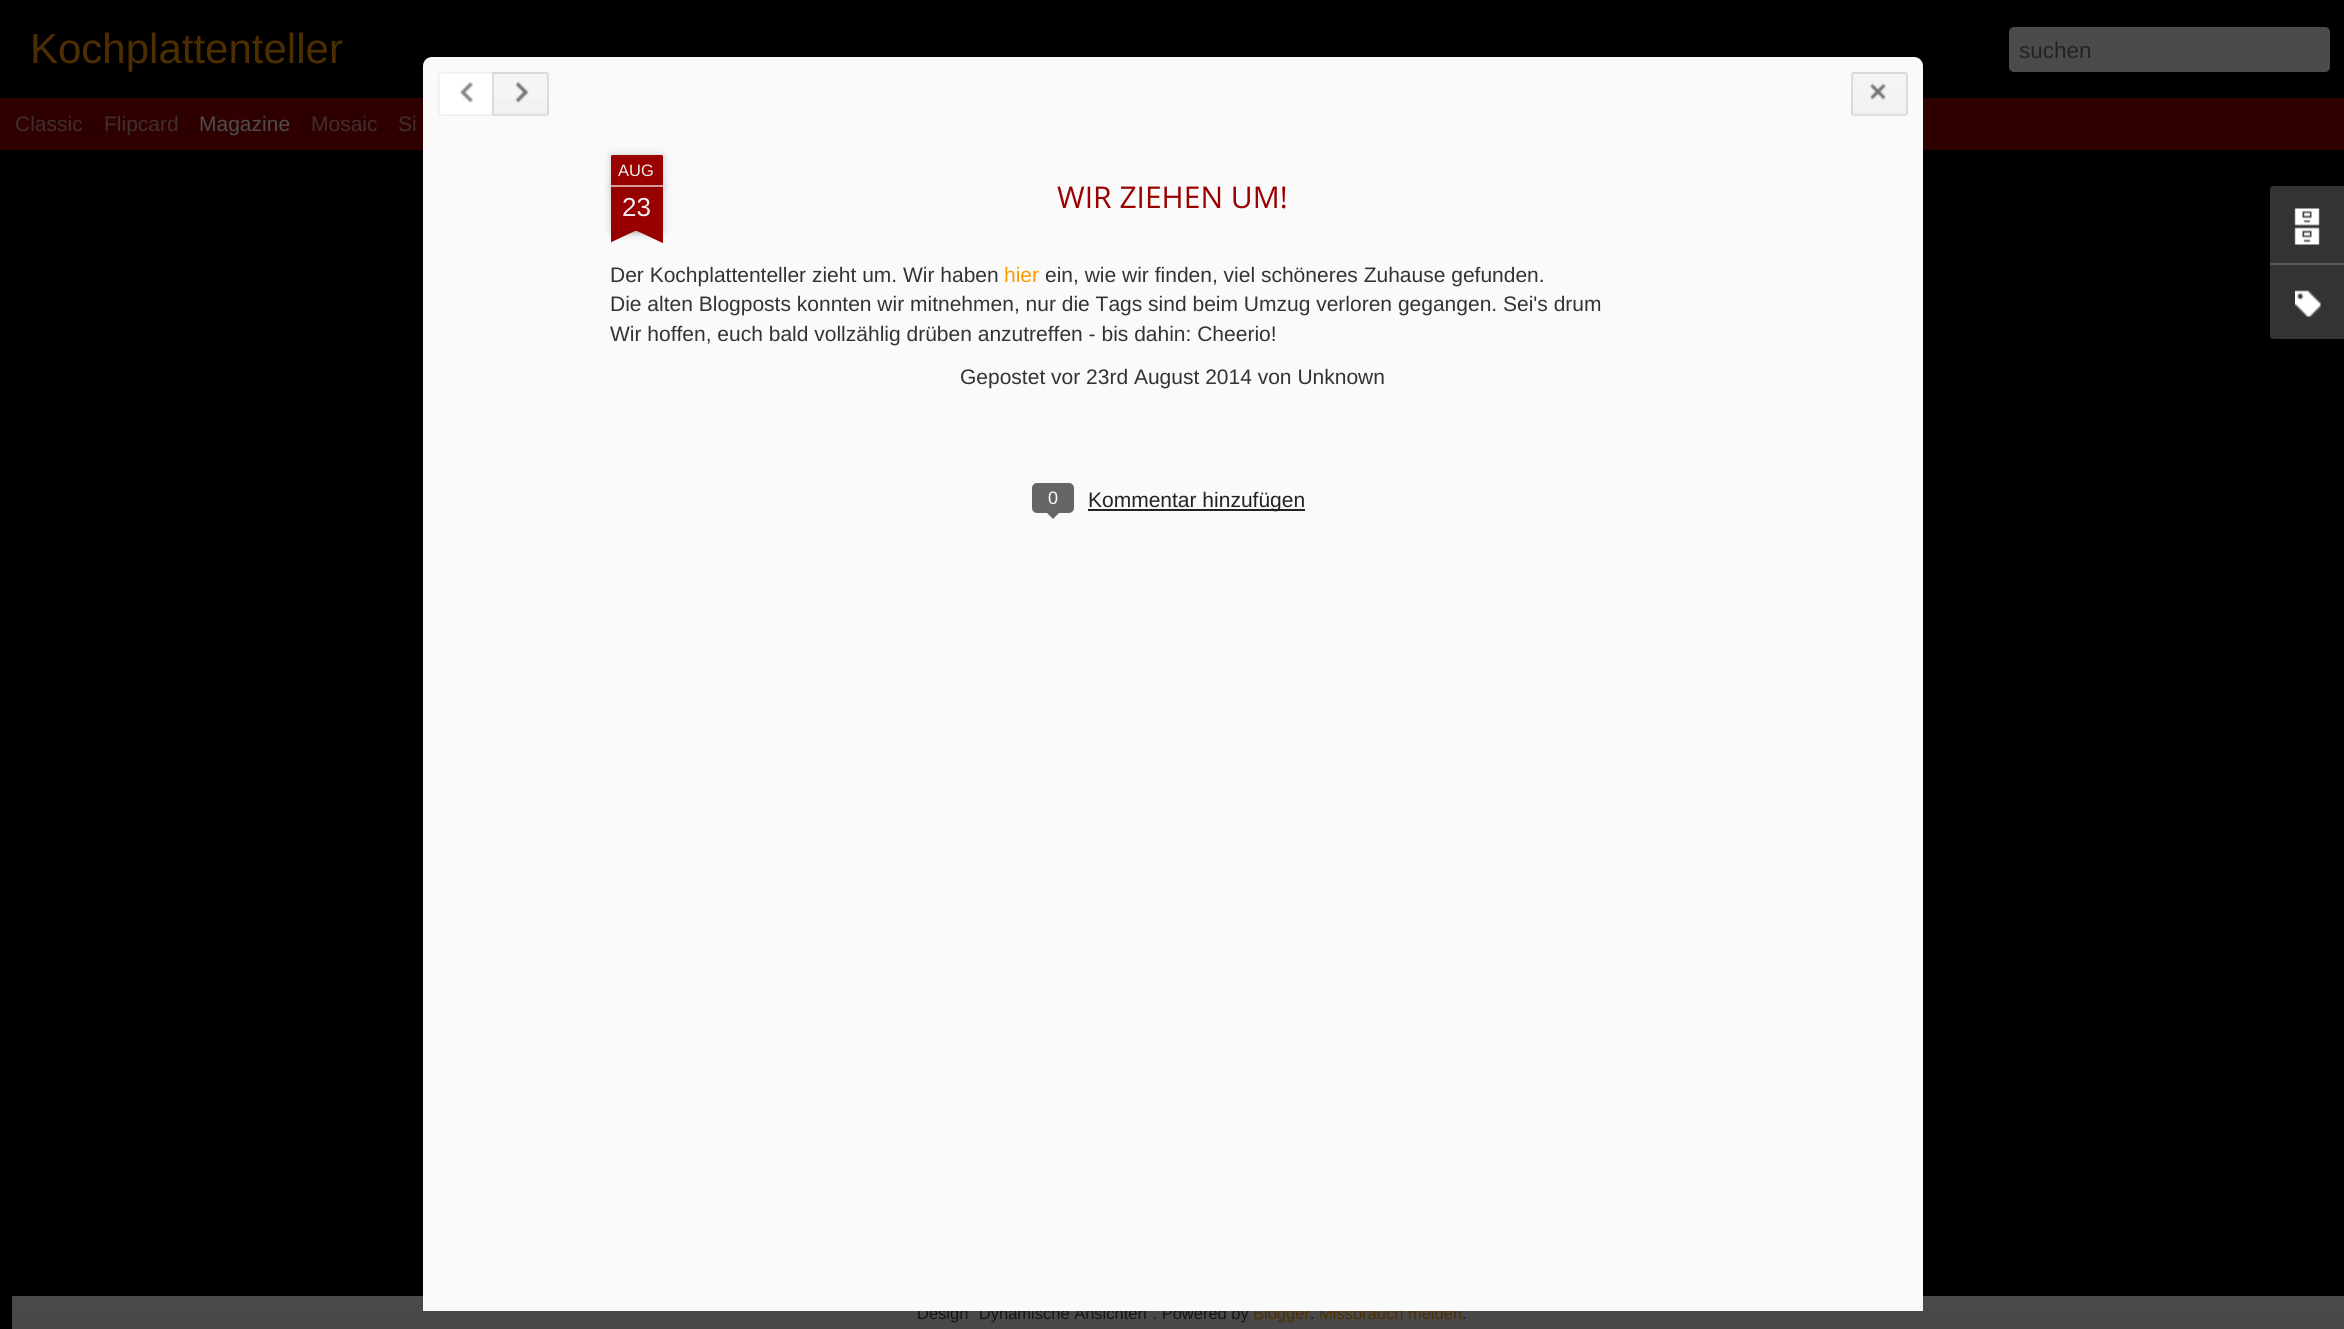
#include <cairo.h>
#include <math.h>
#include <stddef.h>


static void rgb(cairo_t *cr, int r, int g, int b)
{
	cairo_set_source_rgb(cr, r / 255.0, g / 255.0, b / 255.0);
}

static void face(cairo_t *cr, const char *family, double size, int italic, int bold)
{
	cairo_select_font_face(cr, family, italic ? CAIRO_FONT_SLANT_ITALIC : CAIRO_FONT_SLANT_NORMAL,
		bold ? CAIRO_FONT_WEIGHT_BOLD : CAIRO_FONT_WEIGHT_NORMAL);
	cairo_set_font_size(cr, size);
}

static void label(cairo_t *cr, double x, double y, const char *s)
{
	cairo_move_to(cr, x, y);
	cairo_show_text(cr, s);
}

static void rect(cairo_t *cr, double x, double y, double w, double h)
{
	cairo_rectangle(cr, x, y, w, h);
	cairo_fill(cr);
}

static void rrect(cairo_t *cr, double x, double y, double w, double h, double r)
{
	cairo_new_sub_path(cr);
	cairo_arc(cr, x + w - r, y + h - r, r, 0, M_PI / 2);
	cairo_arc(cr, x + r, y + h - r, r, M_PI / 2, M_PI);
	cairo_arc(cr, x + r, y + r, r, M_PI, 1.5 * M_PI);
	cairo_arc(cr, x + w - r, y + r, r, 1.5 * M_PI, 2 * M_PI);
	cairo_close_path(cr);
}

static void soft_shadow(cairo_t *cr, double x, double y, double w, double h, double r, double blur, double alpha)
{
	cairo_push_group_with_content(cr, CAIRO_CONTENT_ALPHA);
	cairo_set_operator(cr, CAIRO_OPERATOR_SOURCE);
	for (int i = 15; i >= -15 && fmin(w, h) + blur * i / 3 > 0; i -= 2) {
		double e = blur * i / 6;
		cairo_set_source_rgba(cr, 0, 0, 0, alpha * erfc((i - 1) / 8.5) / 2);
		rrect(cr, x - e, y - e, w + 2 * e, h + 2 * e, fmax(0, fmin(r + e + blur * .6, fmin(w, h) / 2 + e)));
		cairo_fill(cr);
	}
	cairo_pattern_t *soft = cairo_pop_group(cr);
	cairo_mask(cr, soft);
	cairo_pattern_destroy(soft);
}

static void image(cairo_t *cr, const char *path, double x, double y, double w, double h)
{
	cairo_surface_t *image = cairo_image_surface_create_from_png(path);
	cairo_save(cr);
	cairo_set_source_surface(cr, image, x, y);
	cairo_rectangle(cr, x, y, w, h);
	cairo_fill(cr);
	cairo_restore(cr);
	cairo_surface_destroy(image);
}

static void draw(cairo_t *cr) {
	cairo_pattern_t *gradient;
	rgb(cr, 0, 0, 0);
	cairo_paint(cr);
	face(cr, "Liberation Sans", 42, 0, 0);
	rgb(cr, 77, 46, 0);
	label(cr, 30, 63, "Kochplattenteller");
	rgb(cr, 75, 75, 75);
	rrect(cr, 2009, 27, 321, 45, 5);
	cairo_fill(cr);
	face(cr, "Liberation Sans", 22.5, 0, 0);
	rgb(cr, 35, 35, 35);
	label(cr, 2019, 58, "suchen");
	rgb(cr, 46, 0, 0);
	rect(cr, 0, 98, 2344, 52);
	face(cr, "Liberation Sans", 21, 0, 0);
	rgb(cr, 64, 46, 46);
	label(cr, 15, 131, "Classic");
	label(cr, 104, 131, "Flipcard");
	rgb(cr, 77, 77, 77);
	label(cr, 199, 131, "Magazine");
	rgb(cr, 64, 46, 46);
	label(cr, 311, 131, "Mosaic");
	label(cr, 398, 131, "Si");
	gradient = cairo_pattern_create_linear(1192, 1296, 1192, 1329);
	cairo_pattern_add_color_stop_rgba(gradient, 0, 0.29, 0.29, 0.29, 1);
	cairo_pattern_add_color_stop_rgba(gradient, 1, 0.282, 0.282, 0.282, 1);
	cairo_set_source(cr, gradient);
	cairo_pattern_destroy(gradient);
	rect(cr, 12, 1296, 2332, 33);
	face(cr, "Liberation Sans", 16.5, 0, 0);
	rgb(cr, 20, 20, 20);
	label(cr, 917, 1319, "Design \"Dynamische Ansichten\". Powered by");
	rgb(cr, 77, 46, 0);
	label(cr, 1253, 1319, "Blogger");
	label(cr, 1319, 1319, "Missbrauch melden");
	rgb(cr, 250, 250, 250);
	cairo_new_path(cr);
	cairo_move_to(cr, 432, 57);
	cairo_line_to(cr, 1914, 57);
	cairo_curve_to(cr, 1919, 57, 1923, 61, 1923, 66);
	cairo_line_to(cr, 1923, 1311);
	cairo_line_to(cr, 423, 1311);
	cairo_line_to(cr, 423, 66);
	cairo_curve_to(cr, 423, 61, 427, 57, 432, 57);
	cairo_close_path(cr);
	cairo_fill(cr);
	rgb(cr, 255, 255, 255);
	cairo_new_path(cr);
	cairo_move_to(cr, 441, 73);
	cairo_line_to(cr, 494, 73);
	cairo_line_to(cr, 494, 115);
	cairo_line_to(cr, 441, 115);
	cairo_curve_to(cr, 440, 115, 439, 114, 439, 113);
	cairo_line_to(cr, 439, 75);
	cairo_curve_to(cr, 439, 74, 440, 73, 441, 73);
	cairo_close_path(cr);
	cairo_fill_preserve(cr);
	rgb(cr, 242, 242, 242);
	cairo_stroke(cr);
	image(cr, "image0.png", 460, 81, 13, 22);
	rgb(cr, 245, 245, 245);
	cairo_new_path(cr);
	cairo_move_to(cr, 492, 72);
	cairo_line_to(cr, 546, 72);
	cairo_curve_to(cr, 547.5, 72, 549, 73.5, 549, 75);
	cairo_line_to(cr, 549, 113);
	cairo_curve_to(cr, 549, 114.5, 547.5, 116, 546, 116);
	cairo_line_to(cr, 492, 116);
	cairo_close_path(cr);
	cairo_fill(cr);
	cairo_save(cr);
	cairo_new_path(cr);
	cairo_move_to(cr, 492, 72);
	cairo_line_to(cr, 546, 72);
	cairo_curve_to(cr, 547.5, 72, 549, 73.5, 549, 75);
	cairo_line_to(cr, 549, 113);
	cairo_curve_to(cr, 549, 114.5, 547.5, 116, 546, 116);
	cairo_line_to(cr, 492, 116);
	cairo_close_path(cr);
	cairo_clip(cr);
	gradient = cairo_pattern_create_linear(521, 33, 521, 74);
	cairo_pattern_add_color_stop_rgba(gradient, 0, 0.961, 0.961, 0.961, 1);
	cairo_pattern_add_color_stop_rgba(gradient, 1, 0.945, 0.945, 0.945, 1);
	cairo_set_source(cr, gradient);
	cairo_pattern_destroy(gradient);
	rect(cr, 492, 72, 57, 2);
	cairo_restore(cr);
	gradient = cairo_pattern_create_linear(521, 74, 521, 114);
	cairo_pattern_add_color_stop_rgba(gradient, 0, 0.961, 0.961, 0.961, 1);
	cairo_pattern_add_color_stop_rgba(gradient, 1, 0.945, 0.945, 0.945, 1);
	cairo_set_source(cr, gradient);
	cairo_pattern_destroy(gradient);
	rect(cr, 492, 99, 57, 15);
	cairo_new_path(cr);
	cairo_move_to(cr, 493, 73);
	cairo_line_to(cr, 546, 73);
	cairo_curve_to(cr, 547, 73, 548, 74, 548, 75);
	cairo_line_to(cr, 548, 113);
	cairo_curve_to(cr, 548, 114, 547, 115, 546, 115);
	cairo_line_to(cr, 493, 115);
	cairo_close_path(cr);
	cairo_set_source_rgba(cr, 0, 0, 0, 0.1);
	cairo_stroke(cr);
	image(cr, "image1.png", 515, 81, 14, 22);
	rgb(cr, 245, 245, 245);
	rrect(cr, 1851, 72, 57, 44, 3);
	cairo_fill(cr);
	cairo_save(cr);
	rrect(cr, 1851, 72, 57, 44, 3);
	cairo_clip(cr);
	gradient = cairo_pattern_create_linear(1880, 33, 1880, 74);
	cairo_pattern_add_color_stop_rgba(gradient, 0, 0.961, 0.961, 0.961, 1);
	cairo_pattern_add_color_stop_rgba(gradient, 1, 0.945, 0.945, 0.945, 1);
	cairo_set_source(cr, gradient);
	cairo_pattern_destroy(gradient);
	rect(cr, 1851, 72, 57, 2);
	gradient = cairo_pattern_create_linear(1880, 74, 1880, 114);
	cairo_pattern_add_color_stop_rgba(gradient, 0, 0.961, 0.961, 0.961, 1);
	cairo_pattern_add_color_stop_rgba(gradient, 1, 0.945, 0.945, 0.945, 1);
	cairo_set_source(cr, gradient);
	cairo_pattern_destroy(gradient);
	rect(cr, 1851, 74, 57, 40);
	cairo_restore(cr);
	rrect(cr, 1852, 73, 55, 42, 2);
	cairo_set_source_rgba(cr, 0, 0, 0, 0.1);
	cairo_stroke(cr);
	image(cr, "image2.png", 1870, 83, 16, 17);
	rgb(cr, 0, 0, 0);
	soft_shadow(cr, 611, 186, 52, 45, 0, 4, 0.2);
	rgb(cr, 153, 0, 0);
	rect(cr, 611, 186, 52, 45);
	rgb(cr, 0, 0, 0);
	soft_shadow(cr, 611, 155, 52, 31, 1.5, 4, 0.2);
	rgb(cr, 153, 0, 0);
	cairo_new_path(cr);
	cairo_move_to(cr, 612.5, 155);
	cairo_line_to(cr, 661.5, 155);
	cairo_curve_to(cr, 662.5, 155, 663, 155.5, 663, 156.5);
	cairo_line_to(cr, 663, 186);
	cairo_line_to(cr, 611, 186);
	cairo_line_to(cr, 611, 156.5);
	cairo_curve_to(cr, 611, 155.5, 611.5, 155, 612.5, 155);
	cairo_close_path(cr);
	cairo_fill(cr);
	cairo_set_source_rgba(cr, 1, 1, 1, 0.6);
	rect(cr, 611, 185, 52, 2);
	rgb(cr, 238, 238, 238);
	label(cr, 618, 176, "AUG");
	face(cr, "Liberation Sans", 26, 0, 0);
	label(cr, 622, 216, "23");
	cairo_save(cr);
	cairo_rectangle(cr, 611, 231, 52, 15);
	cairo_clip(cr);
	rgb(cr, 0, 0, 0);
	soft_shadow(cr, 597, 216, 75, 15, 0, 4, 0.2);
	cairo_restore(cr);
	cairo_save(cr);
	cairo_rectangle(cr, 611, 231, 52, 15);
	cairo_clip(cr);
	rgb(cr, 153, 0, 0);
	cairo_new_path(cr);
	cairo_move_to(cr, 597, 233);
	cairo_line_to(cr, 665, 201);
	cairo_line_to(cr, 671, 214);
	cairo_line_to(cr, 603, 246);
	cairo_close_path(cr);
	cairo_fill(cr);
	cairo_restore(cr);
	cairo_save(cr);
	cairo_rectangle(cr, 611, 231, 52, 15);
	cairo_clip(cr);
	rgb(cr, 0, 0, 0);
	soft_shadow(cr, 602, 216, 75, 15, 0, 4, 0.2);
	cairo_restore(cr);
	cairo_save(cr);
	cairo_rectangle(cr, 611, 231, 52, 15);
	cairo_clip(cr);
	rgb(cr, 153, 0, 0);
	cairo_new_path(cr);
	cairo_move_to(cr, 607, 201);
	cairo_line_to(cr, 675, 233);
	cairo_line_to(cr, 669, 246);
	cairo_line_to(cr, 601, 214);
	cairo_close_path(cr);
	cairo_fill(cr);
	cairo_restore(cr);
	face(cr, "Open Sans", 30, 0, 0);
	rgb(cr, 153, 0, 0);
	label(cr, 1057, 208, "WIR ZIEHEN UM!");
	face(cr, "Liberation Sans", 21, 0, 0);
	rgb(cr, 51, 51, 51);
	label(cr, 610, 282, "Der Kochplattenteller zieht um. Wir haben");
	rgb(cr, 255, 153, 0);
	label(cr, 1004, 282, "hier");
	rgb(cr, 51, 51, 51);
	label(cr, 1045, 282, "ein, wie wir finden, viel schöneres Zuhause gefunden.");
	label(cr, 610, 311, "Die alten Blogposts konnten wir mitnehmen, nur die Tags sind beim Umzug verloren gegangen. Sei's drum");
	label(cr, 610, 341, "Wir hoffen, euch bald vollzählig drüben anzutreffen - bis dahin: Cheerio!");
	label(cr, 960, 384, "Gepostet vor 23rd August 2014 von Unknown");
	rgb(cr, 102, 102, 102);
	rrect(cr, 1033, 484, 40, 28, 4);
	cairo_fill_preserve(cr);
	cairo_stroke(cr);
	face(cr, "Liberation Sans", 18, 0, 0);
	rgb(cr, 255, 255, 255);
	label(cr, 1048, 504, "0");
	rgb(cr, 102, 102, 102);
	cairo_new_path(cr);
	cairo_move_to(cr, 1045.5, 511.5);
	cairo_line_to(cr, 1060.5, 511.5);
	cairo_line_to(cr, 1053, 519);
	cairo_close_path(cr);
	cairo_fill(cr);
	rgb(cr, 34, 34, 34);
	rect(cr, 1088, 509, 217, 2);
	face(cr, "Liberation Sans", 21, 0, 0);
	rgb(cr, 35, 35, 35);
	label(cr, 1088, 507, "Kommentar hinzufügen");
	rgb(cr, 51, 51, 51);
	cairo_new_path(cr);
	cairo_move_to(cr, 2273, 186);
	cairo_line_to(cr, 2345, 186);
	cairo_line_to(cr, 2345, 263);
	cairo_line_to(cr, 2270, 263);
	cairo_line_to(cr, 2270, 189);
	cairo_curve_to(cr, 2270, 187.5, 2271.5, 186, 2273, 186);
	cairo_close_path(cr);
	cairo_fill(cr);
	image(cr, "image3.png", 2294, 208, 26, 37);
	cairo_new_path(cr);
	cairo_move_to(cr, 2270, 263);
	cairo_line_to(cr, 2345, 263);
	cairo_line_to(cr, 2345, 339);
	cairo_line_to(cr, 2273, 339);
	cairo_curve_to(cr, 2271.5, 339, 2270, 337.5, 2270, 336);
	cairo_close_path(cr);
	cairo_fill(cr);
	rgb(cr, 88, 88, 88);
	rect(cr, 2270, 263, 74, 2);
	image(cr, "image4.png", 2295, 290, 26, 27);
	face(cr, "Liberation Sans", 16.5, 0, 0);
	rgb(cr, 20, 20, 20);
	label(cr, 1310, 1319, ".");
	label(cr, 1462, 1319, ".");
}

int main(void) {
	cairo_surface_t *surface = cairo_image_surface_create(CAIRO_FORMAT_RGB24, 2344, 1329);
	cairo_t *cr = cairo_create(surface);
	cairo_font_options_t *options = cairo_font_options_create();
	cairo_font_options_set_hint_metrics(options, CAIRO_HINT_METRICS_OFF);
	cairo_font_options_set_hint_style(options, CAIRO_HINT_STYLE_NONE);
	cairo_set_font_options(cr, options);
	cairo_set_miter_limit(cr, 4);
	draw(cr);
	cairo_surface_write_to_png(surface, "render.png");
	cairo_font_options_destroy(options);
	cairo_destroy(cr);
	cairo_surface_destroy(surface);
	return 0;
}
